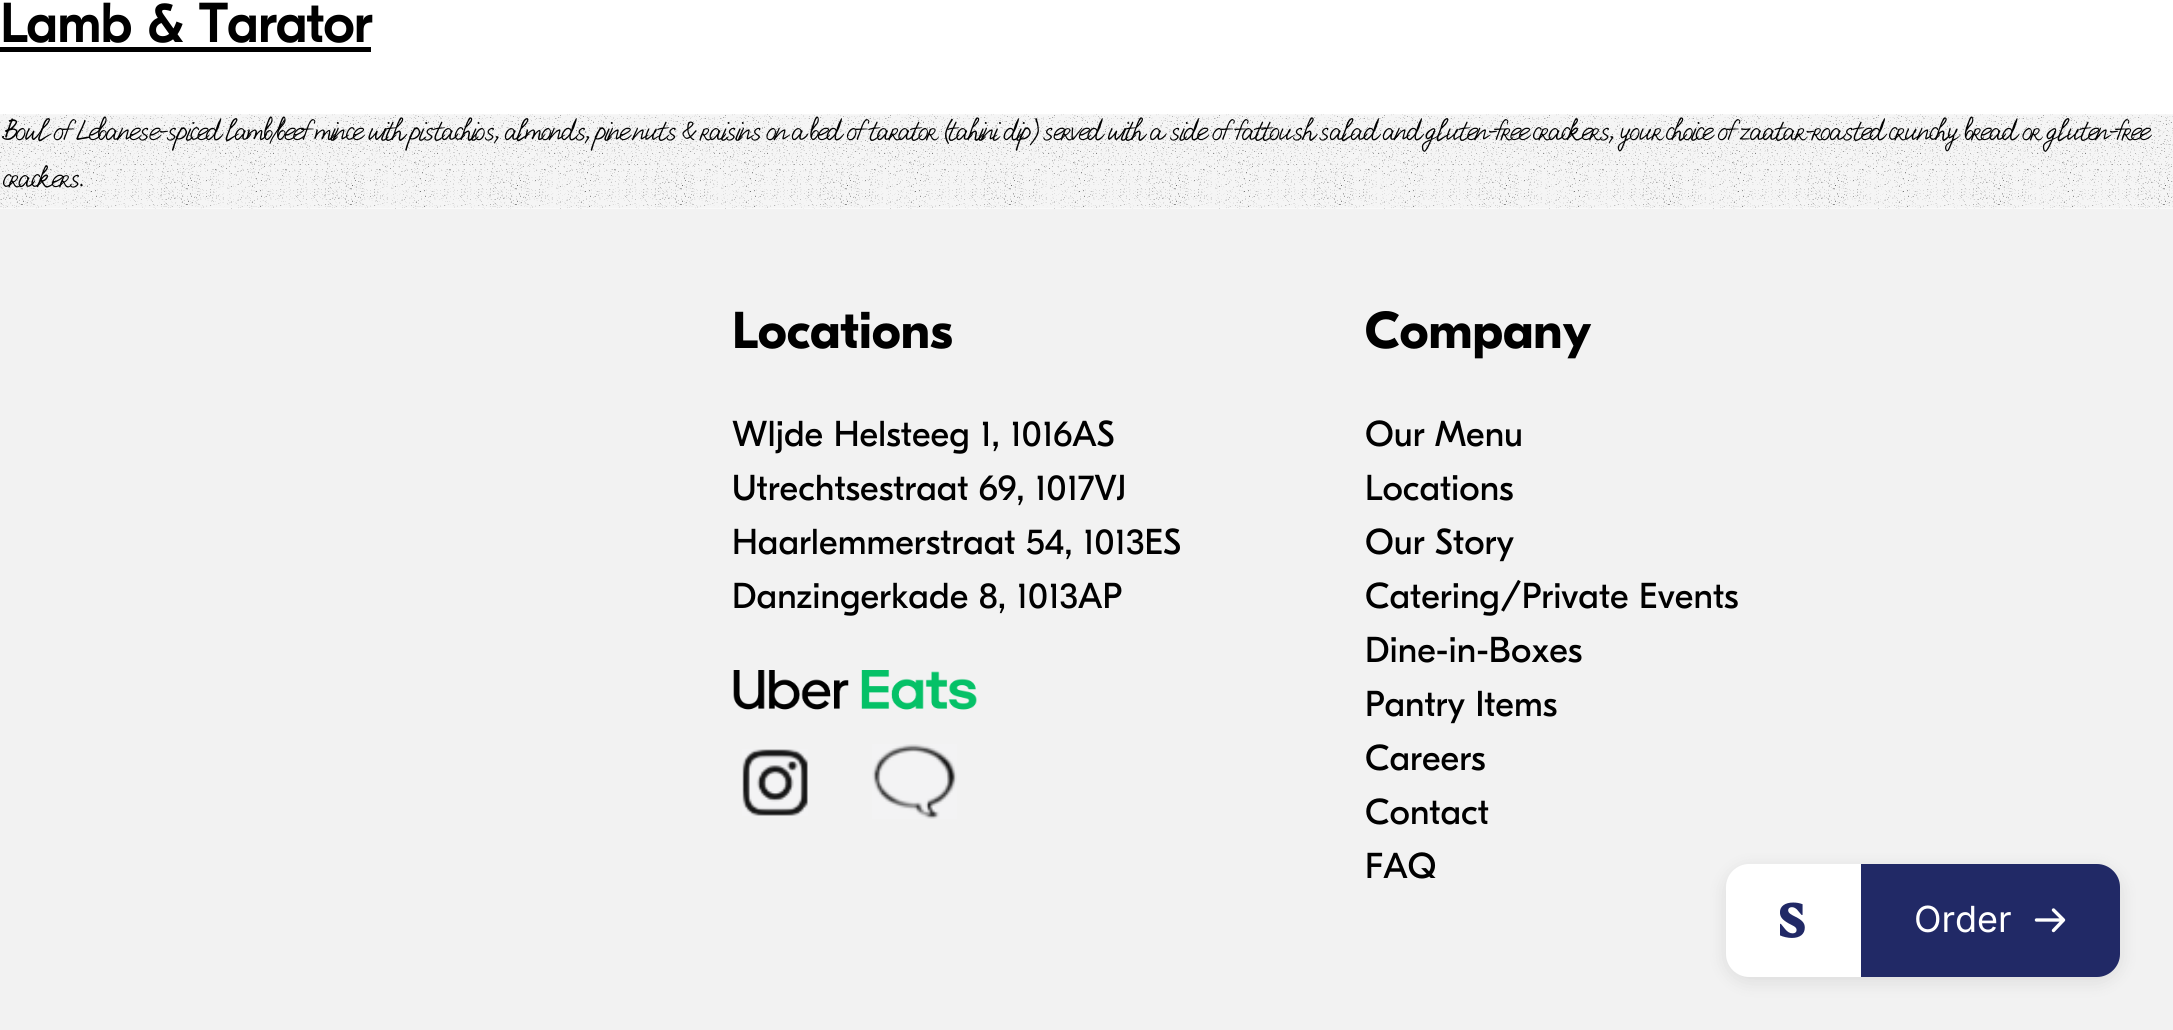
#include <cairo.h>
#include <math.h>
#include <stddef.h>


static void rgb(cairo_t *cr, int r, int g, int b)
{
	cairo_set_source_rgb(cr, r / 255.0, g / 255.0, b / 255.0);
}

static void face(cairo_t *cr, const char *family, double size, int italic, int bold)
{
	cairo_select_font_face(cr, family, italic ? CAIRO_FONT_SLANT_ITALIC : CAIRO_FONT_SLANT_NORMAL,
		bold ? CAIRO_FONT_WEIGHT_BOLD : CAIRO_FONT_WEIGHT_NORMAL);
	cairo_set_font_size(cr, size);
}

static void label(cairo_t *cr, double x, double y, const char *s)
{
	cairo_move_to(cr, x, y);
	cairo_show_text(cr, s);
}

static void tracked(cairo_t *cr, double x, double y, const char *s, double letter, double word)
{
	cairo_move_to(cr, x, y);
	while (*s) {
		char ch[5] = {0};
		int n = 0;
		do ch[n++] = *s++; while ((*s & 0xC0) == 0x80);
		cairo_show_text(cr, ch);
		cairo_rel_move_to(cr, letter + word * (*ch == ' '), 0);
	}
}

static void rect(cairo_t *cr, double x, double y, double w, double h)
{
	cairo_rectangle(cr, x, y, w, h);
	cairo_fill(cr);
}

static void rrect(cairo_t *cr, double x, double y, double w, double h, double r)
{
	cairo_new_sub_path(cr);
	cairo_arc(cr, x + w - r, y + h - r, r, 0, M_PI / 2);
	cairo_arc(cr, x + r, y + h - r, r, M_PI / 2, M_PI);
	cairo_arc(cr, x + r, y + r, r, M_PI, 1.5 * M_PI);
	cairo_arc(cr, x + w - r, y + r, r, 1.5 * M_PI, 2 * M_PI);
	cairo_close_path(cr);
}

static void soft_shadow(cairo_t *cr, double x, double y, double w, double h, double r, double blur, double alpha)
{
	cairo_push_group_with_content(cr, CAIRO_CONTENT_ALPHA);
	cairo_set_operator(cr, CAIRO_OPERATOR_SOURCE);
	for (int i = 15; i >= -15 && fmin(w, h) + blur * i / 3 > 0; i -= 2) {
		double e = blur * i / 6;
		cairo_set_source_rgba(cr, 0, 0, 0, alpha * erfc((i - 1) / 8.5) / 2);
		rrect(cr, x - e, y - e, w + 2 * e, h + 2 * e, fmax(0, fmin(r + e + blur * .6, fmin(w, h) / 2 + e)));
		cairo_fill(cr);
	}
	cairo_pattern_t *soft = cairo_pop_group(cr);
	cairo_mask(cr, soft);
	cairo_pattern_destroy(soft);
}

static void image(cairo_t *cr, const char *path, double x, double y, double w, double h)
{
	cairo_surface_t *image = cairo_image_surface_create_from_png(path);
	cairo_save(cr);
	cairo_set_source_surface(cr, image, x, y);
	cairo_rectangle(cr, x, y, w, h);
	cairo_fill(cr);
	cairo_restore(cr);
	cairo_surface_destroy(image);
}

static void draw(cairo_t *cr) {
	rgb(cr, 255, 255, 255);
	cairo_paint(cr);
	face(cr, "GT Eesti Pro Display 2", 54, 0, 1);
	rgb(cr, 0, 0, 0);
	label(cr, 0, 42, "Lamb & Tarator");
	rect(cr, 0, 47, 371, 5);
	image(cr, "image0.png", 0, 114, 2173, 95);
	face(cr, "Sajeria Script", 30.9, 0, 0);
	tracked(cr, 0, 140, "Bowl of Lebanese-spiced lamb/beef mince with pistachios,", -2.25, 0.95);
	tracked(cr, 502, 140, "almonds,", -2.25, 0.95);
	tracked(cr, 593, 140, "pine", -2.25, 0.95);
	tracked(cr, 631, 140, "nuts", -2.25, 0.95);
	tracked(cr, 679, 140, "& raisins", -2.25, 0.95);
	tracked(cr, 764, 140, "on", -2.25, 0.95);
	tracked(cr, 789, 140, "a", -2.25, 0.95);
	tracked(cr, 807, 140, "bed of tarator (tahini dip)", -2.25, 0.95);
	tracked(cr, 1040, 140, "served with a side of fattoush", -2.25, 0.95);
	tracked(cr, 1316, 140, "salad", -2.25, 0.95);
	tracked(cr, 1380, 140, "and", -2.25, 0.95);
	tracked(cr, 1423, 140, "gluten-free", -2.25, 0.95);
	tracked(cr, 1530, 140, "crackers,", -2.25, 0.95);
	tracked(cr, 1617, 140, "your", -2.25, 0.95);
	tracked(cr, 1663, 140, "choice of", -2.25, 0.95);
	tracked(cr, 1736, 140, "zaatar-roasted", -2.25, 0.95);
	tracked(cr, 1886, 140, "crunchy bread or gluten-free", -2.25, 0.95);
	tracked(cr, 0, 187, "crackers.", -2.25, 0);
	rgb(cr, 242, 242, 242);
	rect(cr, 0, 209, 2173, 821);
	face(cr, "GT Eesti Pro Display", 51.75, 0, 1);
	rgb(cr, 0, 0, 0);
	label(cr, 732, 348, "Locations");
	face(cr, "GT Eesti Pro Display", 36, 0, 0);
	label(cr, 732, 446, "Wljde Helsteeg 1, 1016AS");
	label(cr, 732, 500, "Utrechtsestraat 69, 1017VJ");
	label(cr, 732, 554, "Haarlemmerstraat 54, 1013ES");
	label(cr, 732, 608, "Danzingerkade 8, 1013AP");
	image(cr, "image1.png", 733, 670, 244, 40);
	image(cr, "image2.png", 742, 749, 66, 67);
	image(cr, "image3.png", 872, 744, 85, 75);
	face(cr, "GT Eesti Pro Display", 51.75, 0, 1);
	label(cr, 1365, 348, "Company");
	face(cr, "GT Eesti Pro Display", 36, 0, 0);
	label(cr, 1365, 446, "Our Menu");
	label(cr, 1365, 500, "Locations");
	label(cr, 1365, 554, "Our Story");
	label(cr, 1365, 608, "Catering/Private Events");
	label(cr, 1365, 662, "Dine-in-Boxes");
	label(cr, 1365, 716, "Pantry Items");
	label(cr, 1365, 770, "Careers");
	label(cr, 1365, 824, "Contact");
	label(cr, 1365, 878, "FAQ");
	rgb(cr, 0, 0, 0);
	soft_shadow(cr, 1726, 869, 394, 112, 23, 9, 0.1);
	rgb(cr, 255, 255, 255);
	cairo_new_path(cr);
	cairo_move_to(cr, 1749, 864);
	cairo_line_to(cr, 1861, 864);
	cairo_line_to(cr, 1861, 977);
	cairo_line_to(cr, 1749, 977);
	cairo_curve_to(cr, 1736.5, 977, 1726, 966.5, 1726, 954);
	cairo_line_to(cr, 1726, 887);
	cairo_curve_to(cr, 1726, 874.5, 1736.5, 864, 1749, 864);
	cairo_close_path(cr);
	cairo_fill(cr);
	image(cr, "image4.png", 1780, 902, 25, 36);
	rgb(cr, 33, 41, 102);
	cairo_new_path(cr);
	cairo_move_to(cr, 1861, 864);
	cairo_line_to(cr, 2097, 864);
	cairo_curve_to(cr, 2109.5, 864, 2120, 874.5, 2120, 887);
	cairo_line_to(cr, 2120, 954);
	cairo_curve_to(cr, 2120, 966.5, 2109.5, 977, 2097, 977);
	cairo_line_to(cr, 1861, 977);
	cairo_close_path(cr);
	cairo_fill(cr);
	face(cr, "Inter", 36, 0, 0);
	rgb(cr, 255, 255, 255);
	label(cr, 1914, 932, "Order");
	cairo_new_path(cr);
	cairo_move_to(cr, 2036.5, 920);
	cairo_line_to(cr, 2063.5, 920);
	cairo_move_to(cr, 2063.5, 920);
	cairo_line_to(cr, 2053.5, 910);
	cairo_move_to(cr, 2063.5, 920);
	cairo_line_to(cr, 2053.5, 930.5);
	cairo_set_line_width(cr, 3.4);
	cairo_set_line_cap(cr, CAIRO_LINE_CAP_ROUND);
	cairo_set_line_join(cr, CAIRO_LINE_JOIN_ROUND);
	cairo_stroke(cr);
}

int main(void) {
	cairo_surface_t *surface = cairo_image_surface_create(CAIRO_FORMAT_RGB24, 2173, 1030);
	cairo_t *cr = cairo_create(surface);
	cairo_font_options_t *options = cairo_font_options_create();
	cairo_font_options_set_hint_metrics(options, CAIRO_HINT_METRICS_OFF);
	cairo_font_options_set_hint_style(options, CAIRO_HINT_STYLE_NONE);
	cairo_set_font_options(cr, options);
	cairo_set_miter_limit(cr, 4);
	draw(cr);
	cairo_surface_write_to_png(surface, "render.png");
	cairo_font_options_destroy(options);
	cairo_destroy(cr);
	cairo_surface_destroy(surface);
	return 0;
}
